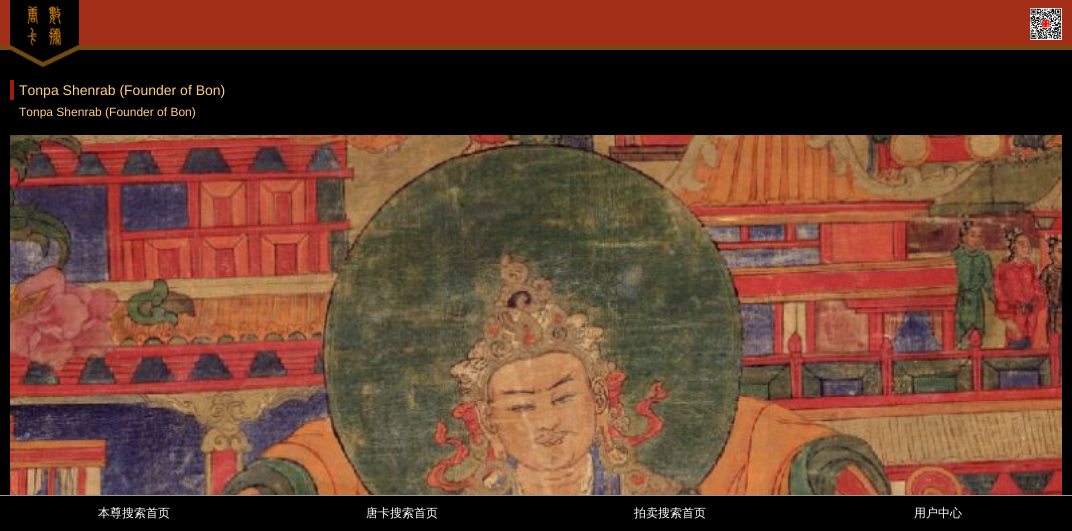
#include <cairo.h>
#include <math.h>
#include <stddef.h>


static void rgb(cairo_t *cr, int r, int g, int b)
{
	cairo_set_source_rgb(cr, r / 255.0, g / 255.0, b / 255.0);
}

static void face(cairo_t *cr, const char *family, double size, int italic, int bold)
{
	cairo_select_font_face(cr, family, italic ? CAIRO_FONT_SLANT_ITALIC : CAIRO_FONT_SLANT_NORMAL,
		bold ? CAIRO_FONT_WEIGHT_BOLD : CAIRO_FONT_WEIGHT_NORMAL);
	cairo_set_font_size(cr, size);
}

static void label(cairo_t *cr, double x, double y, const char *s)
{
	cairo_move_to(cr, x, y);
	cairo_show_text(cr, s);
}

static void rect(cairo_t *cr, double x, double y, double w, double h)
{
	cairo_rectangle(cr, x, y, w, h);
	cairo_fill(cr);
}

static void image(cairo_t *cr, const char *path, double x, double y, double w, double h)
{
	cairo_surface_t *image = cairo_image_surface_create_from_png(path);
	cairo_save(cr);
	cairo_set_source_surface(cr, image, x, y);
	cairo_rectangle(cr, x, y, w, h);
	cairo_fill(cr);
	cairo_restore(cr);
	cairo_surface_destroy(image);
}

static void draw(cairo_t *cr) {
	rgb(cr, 0, 0, 0);
	cairo_paint(cr);
	image(cr, "image0.png", 0, 0, 1072, 50);
	image(cr, "image1.png", 10, 0, 69, 67);
	image(cr, "image2.png", 1030, 8, 32, 32);
	rgb(cr, 152, 30, 17);
	rect(cr, 10, 80, 4, 20);
	face(cr, "Liberation Sans", 14, 0, 0);
	rgb(cr, 255, 205, 135);
	label(cr, 19, 95, "Tonpa Shenrab (Founder of Bon)");
	face(cr, "Liberation Sans", 12, 0, 0);
	label(cr, 19, 116, "Tonpa Shenrab (Founder of Bon)");
	image(cr, "image3.png", 10, 135, 1052, 360);
	rgb(cr, 153, 153, 153);
	rect(cr, 0, 495, 1072, 1);
	face(cr, "WenQuanYi Zen Hei Medium", 12, 0, 0);
	rgb(cr, 255, 255, 255);
	label(cr, 98, 517, "本尊搜索首页");
	label(cr, 366, 517, "唐卡搜索首页");
	label(cr, 634, 517, "拍卖搜索首页");
	label(cr, 914, 517, "用户中心");
}

int main(void) {
	cairo_surface_t *surface = cairo_image_surface_create(CAIRO_FORMAT_RGB24, 1072, 531);
	cairo_t *cr = cairo_create(surface);
	cairo_font_options_t *options = cairo_font_options_create();
	cairo_font_options_set_hint_metrics(options, CAIRO_HINT_METRICS_OFF);
	cairo_font_options_set_hint_style(options, CAIRO_HINT_STYLE_NONE);
	cairo_set_font_options(cr, options);
	cairo_set_miter_limit(cr, 4);
	draw(cr);
	cairo_surface_write_to_png(surface, "render.png");
	cairo_font_options_destroy(options);
	cairo_destroy(cr);
	cairo_surface_destroy(surface);
	return 0;
}
